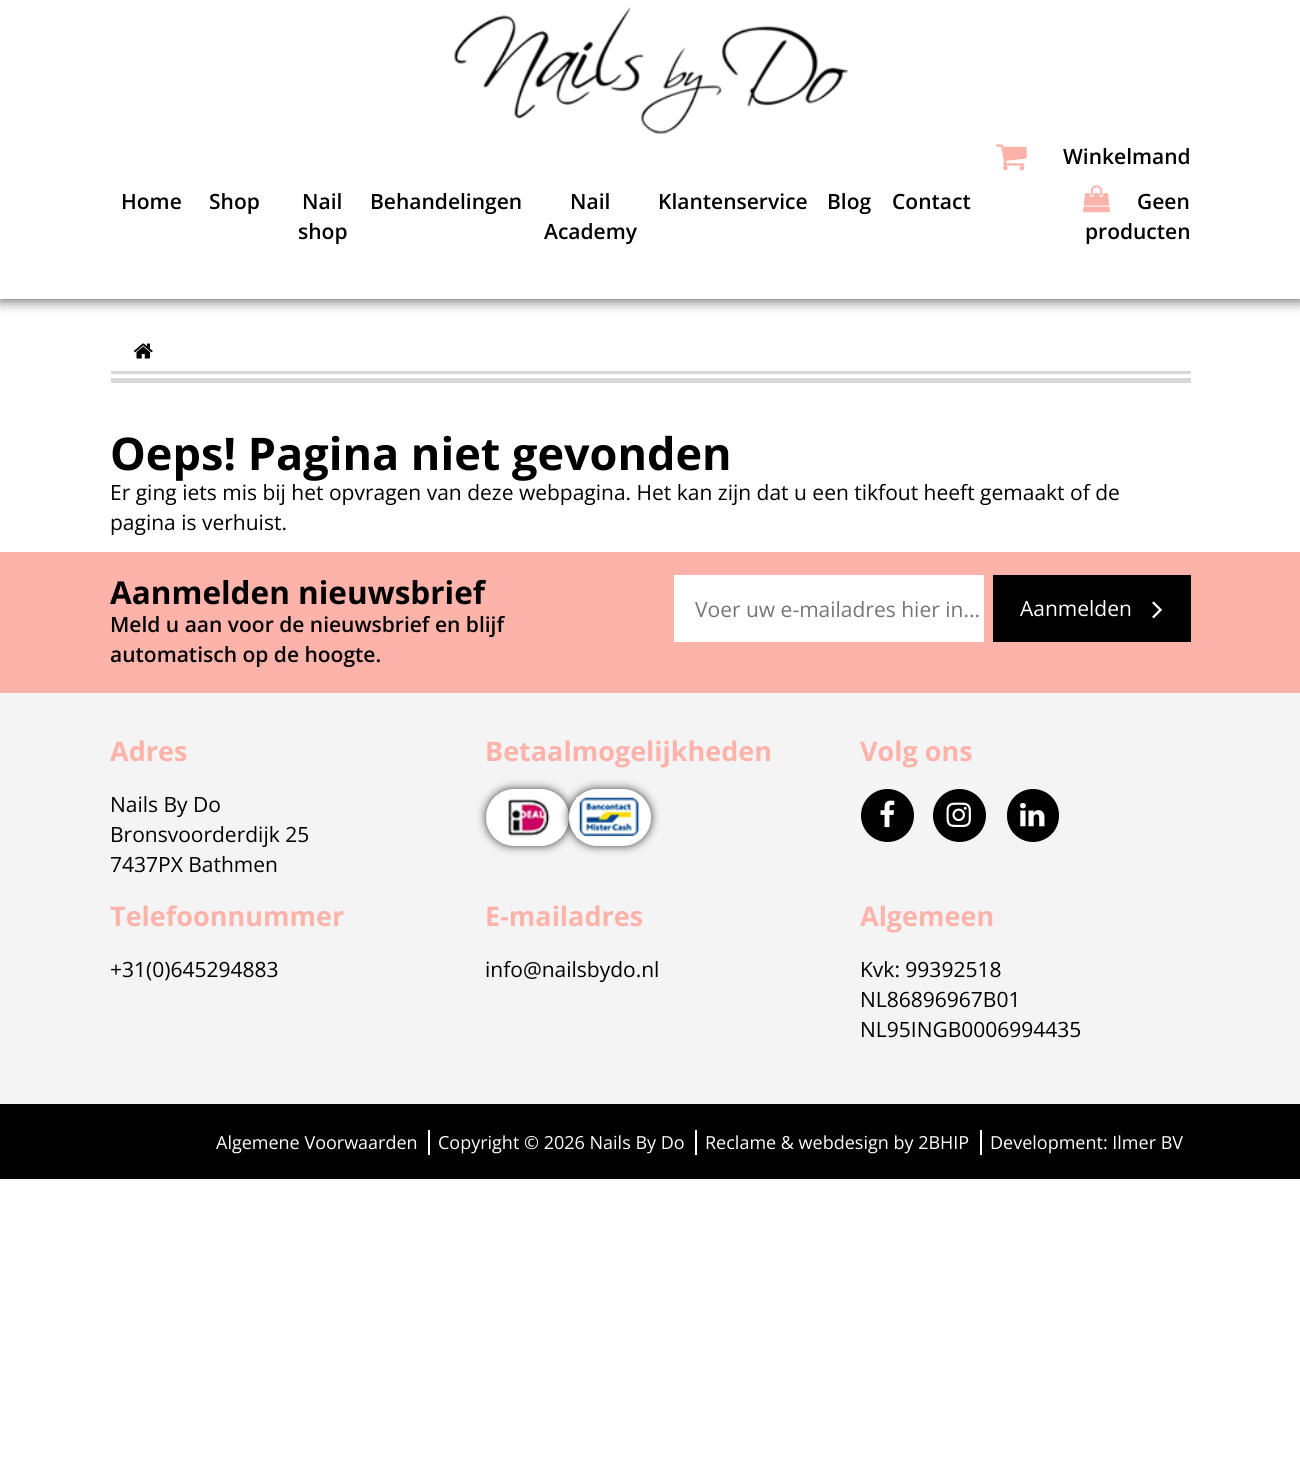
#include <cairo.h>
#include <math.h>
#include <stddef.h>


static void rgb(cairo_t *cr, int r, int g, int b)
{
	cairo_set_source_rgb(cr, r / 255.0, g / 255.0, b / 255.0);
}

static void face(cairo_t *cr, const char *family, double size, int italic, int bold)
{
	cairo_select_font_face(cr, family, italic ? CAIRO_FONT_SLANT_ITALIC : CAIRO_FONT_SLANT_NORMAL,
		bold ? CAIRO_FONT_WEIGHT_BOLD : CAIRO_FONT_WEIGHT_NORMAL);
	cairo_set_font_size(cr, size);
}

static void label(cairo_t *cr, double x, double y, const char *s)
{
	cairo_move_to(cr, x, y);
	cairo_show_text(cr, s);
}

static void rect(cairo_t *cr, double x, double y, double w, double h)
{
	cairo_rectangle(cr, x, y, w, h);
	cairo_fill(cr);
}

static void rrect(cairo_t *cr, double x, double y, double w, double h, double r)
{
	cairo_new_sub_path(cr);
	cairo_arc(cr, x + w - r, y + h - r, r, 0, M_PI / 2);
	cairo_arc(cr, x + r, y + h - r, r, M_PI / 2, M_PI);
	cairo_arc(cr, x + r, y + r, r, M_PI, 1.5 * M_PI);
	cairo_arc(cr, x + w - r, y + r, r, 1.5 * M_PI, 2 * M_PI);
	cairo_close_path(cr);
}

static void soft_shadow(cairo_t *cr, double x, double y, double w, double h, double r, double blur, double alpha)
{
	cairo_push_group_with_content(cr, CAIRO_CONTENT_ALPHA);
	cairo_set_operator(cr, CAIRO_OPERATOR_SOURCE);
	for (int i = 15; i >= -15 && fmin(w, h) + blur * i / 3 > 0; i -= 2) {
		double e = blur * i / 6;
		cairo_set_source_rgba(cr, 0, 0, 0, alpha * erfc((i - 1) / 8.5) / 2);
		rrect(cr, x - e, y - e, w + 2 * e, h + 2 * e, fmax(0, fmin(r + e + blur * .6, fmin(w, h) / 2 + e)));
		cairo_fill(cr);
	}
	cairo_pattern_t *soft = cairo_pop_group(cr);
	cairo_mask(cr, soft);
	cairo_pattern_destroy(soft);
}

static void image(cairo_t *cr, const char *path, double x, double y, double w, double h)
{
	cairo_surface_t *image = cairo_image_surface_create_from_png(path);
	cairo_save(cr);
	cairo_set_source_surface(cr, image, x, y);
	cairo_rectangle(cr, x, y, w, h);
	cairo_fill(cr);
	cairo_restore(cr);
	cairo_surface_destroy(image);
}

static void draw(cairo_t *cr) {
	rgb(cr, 255, 255, 255);
	cairo_paint(cr);
	rgb(cr, 0, 0, 0);
	soft_shadow(cr, 0, 0, 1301, 299, 0, 7.5, 0.75);
	rgb(cr, 255, 255, 255);
	rect(cr, 0, 0, 1300, 299);
	image(cr, "image0.png", 454, 7, 394, 127);
	face(cr, "Open Sans SemiBold", 21, 0, 0);
	rgb(cr, 0, 0, 0);
	label(cr, 121, 209, "Home");
	label(cr, 209, 209, "Shop");
	label(cr, 302, 209, "Nail");
	label(cr, 298, 239, "shop");
	label(cr, 370, 209, "Behandelingen");
	label(cr, 570, 209, "Nail");
	label(cr, 544, 239, "Academy");
	label(cr, 658, 209, "Klantenservice");
	label(cr, 827, 209, "Blog");
	label(cr, 892, 209, "Contact");
	image(cr, "image1.png", 996, 144, 31, 27);
	label(cr, 1063, 164, "Winkelmand");
	image(cr, "image2.png", 1083, 185, 27, 28);
	label(cr, 1137, 209, "Geen");
	label(cr, 1085, 239, "producten");
	image(cr, "image3.png", 133, 343, 20, 16);
	rgb(cr, 216, 216, 216);
	rect(cr, 111, 371, 1080, 3);
	rect(cr, 111, 378, 1080, 5);
	face(cr, "Open Sans", 45, 0, 1);
	rgb(cr, 0, 0, 0);
	label(cr, 110, 470, "Oeps! Pagina niet gevonden");
	face(cr, "Open Sans", 21, 0, 0);
	label(cr, 110, 500, "Er ging iets mis bij het opvragen van deze webpagina. Het kan zijn dat u een tikfout heeft gemaakt of de");
	label(cr, 110, 530, "pagina is verhuist.");
	rgb(cr, 253, 179, 170);
	rect(cr, 0, 552, 1300, 141);
	face(cr, "Open Sans", 31.5, 0, 1);
	rgb(cr, 0, 0, 0);
	label(cr, 110, 604, "Aanmelden nieuwsbrief");
	face(cr, "Open Sans SemiBold", 21, 0, 0);
	label(cr, 110, 632, "Meld u aan voor de nieuwsbrief en blijf");
	label(cr, 110, 662, "automatisch op de hoogte.");
	rgb(cr, 255, 255, 255);
	rect(cr, 674, 575, 310, 67);
	face(cr, "Open Sans", 21, 0, 0);
	rgb(cr, 117, 117, 117);
	label(cr, 695, 617, "Voer uw e-mailadres hier in...");
	rgb(cr, 0, 0, 0);
	rect(cr, 993, 575, 198, 67);
	rgb(cr, 255, 255, 255);
	label(cr, 1020, 616, "Aanmelden");
	image(cr, "image4.png", 1152, 601, 10, 18);
	rgb(cr, 244, 244, 244);
	rect(cr, 0, 693, 1300, 411);
	face(cr, "Open Sans", 27, 0, 1);
	rgb(cr, 253, 179, 170);
	label(cr, 110, 761, "Adres");
	face(cr, "Open Sans", 21, 0, 0);
	rgb(cr, 0, 0, 0);
	label(cr, 110, 812, "Nails By Do");
	label(cr, 110, 842, "Bronsvoorderdijk 25");
	label(cr, 110, 872, "7437PX Bathmen");
	face(cr, "Open Sans", 27, 0, 1);
	rgb(cr, 253, 179, 170);
	label(cr, 485, 761, "Betaalmogelijkheden");
	rgb(cr, 0, 0, 0);
	soft_shadow(cr, 486, 789, 83, 57, 28.5, 4.5, 0.75);
	rgb(cr, 255, 255, 255);
	rrect(cr, 486, 789, 83, 57, 28.5);
	cairo_fill(cr);
	image(cr, "image5.png", 493, 796, 58, 43);
	rgb(cr, 0, 0, 0);
	soft_shadow(cr, 569, 789, 82, 57, 28.5, 4.5, 0.75);
	rgb(cr, 255, 255, 255);
	rrect(cr, 569, 789, 82, 57, 28.5);
	cairo_fill(cr);
	image(cr, "image6.png", 576, 796, 66, 43);
	rgb(cr, 253, 179, 170);
	label(cr, 860, 761, "Volg ons");
	rgb(cr, 0, 0, 0);
	cairo_new_path(cr);
	cairo_arc(cr, 887.5, 815.5, 26.5, 0, 2 * M_PI);
	cairo_fill(cr);
	image(cr, "image7.png", 880, 800, 15, 28);
	cairo_arc(cr, 959.5, 815.5, 26.5, 0, 2 * M_PI);
	cairo_fill(cr);
	image(cr, "image8.png", 946, 802, 25, 25);
	rrect(cr, 1007, 789, 52, 53, 26);
	cairo_fill(cr);
	image(cr, "image9.png", 1020, 803, 25, 24);
	rgb(cr, 253, 179, 170);
	label(cr, 110, 926, "Telefoonnummer");
	face(cr, "Open Sans", 21, 0, 0);
	rgb(cr, 0, 0, 0);
	label(cr, 110, 977, "+31(0)645294883");
	face(cr, "Open Sans", 27, 0, 1);
	rgb(cr, 253, 179, 170);
	label(cr, 485, 926, "E-mailadres");
	face(cr, "Open Sans", 21, 0, 0);
	rgb(cr, 0, 0, 0);
	label(cr, 485, 977, "info@nailsbydo.nl");
	face(cr, "Open Sans", 27, 0, 1);
	rgb(cr, 253, 179, 170);
	label(cr, 860, 926, "Algemeen");
	face(cr, "Open Sans", 21, 0, 0);
	rgb(cr, 0, 0, 0);
	label(cr, 860, 977, "Kvk: 99392518");
	label(cr, 860, 1007, "NL86896967B01");
	label(cr, 860, 1037, "NL95INGB0006994435");
	rect(cr, 0, 1104, 1300, 75);
	face(cr, "Open Sans", 18, 0, 0);
	rgb(cr, 255, 255, 255);
	label(cr, 216, 1149, "Algemene Voorwaarden");
	rect(cr, 428, 1130, 2, 25);
	label(cr, 438, 1149, "Copyright © 2026 Nails By Do");
	rect(cr, 695, 1130, 2, 25);
	label(cr, 705, 1149, "Reclame & webdesign by 2BHIP");
	rect(cr, 980, 1130, 2, 25);
	label(cr, 990, 1149, "Development: Ilmer BV");
}

int main(void) {
	cairo_surface_t *surface = cairo_image_surface_create(CAIRO_FORMAT_RGB24, 1300, 1466);
	cairo_t *cr = cairo_create(surface);
	cairo_font_options_t *options = cairo_font_options_create();
	cairo_font_options_set_hint_metrics(options, CAIRO_HINT_METRICS_OFF);
	cairo_font_options_set_hint_style(options, CAIRO_HINT_STYLE_NONE);
	cairo_set_font_options(cr, options);
	cairo_set_miter_limit(cr, 4);
	draw(cr);
	cairo_surface_write_to_png(surface, "render.png");
	cairo_font_options_destroy(options);
	cairo_destroy(cr);
	cairo_surface_destroy(surface);
	return 0;
}
